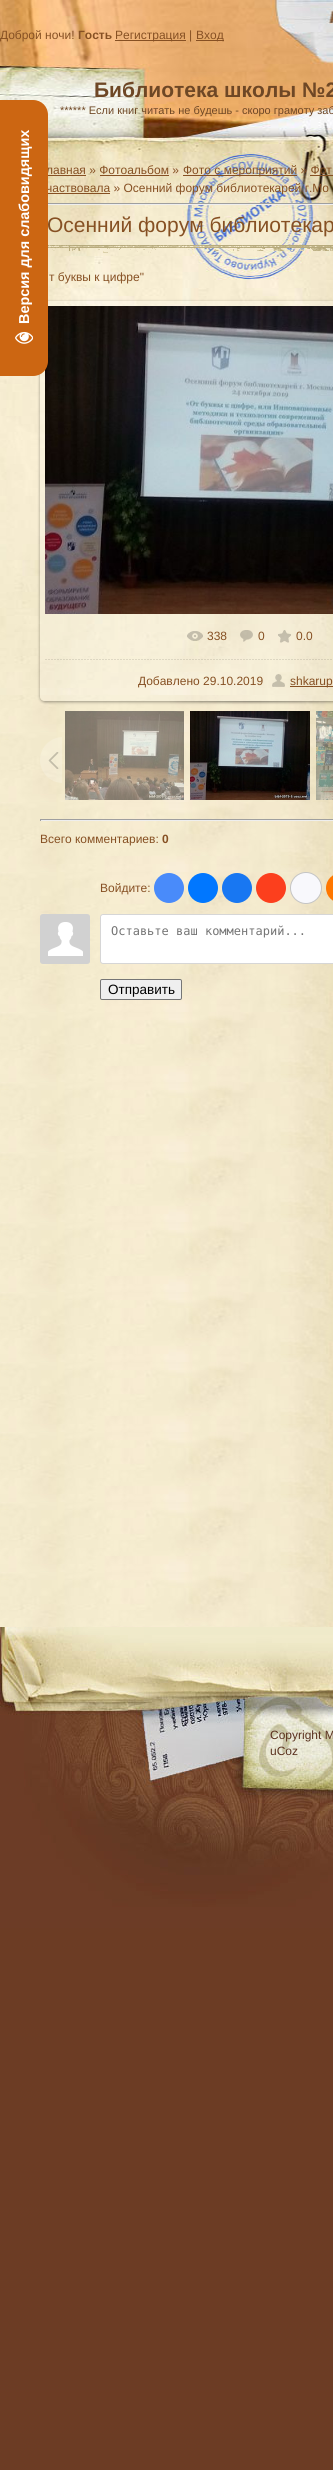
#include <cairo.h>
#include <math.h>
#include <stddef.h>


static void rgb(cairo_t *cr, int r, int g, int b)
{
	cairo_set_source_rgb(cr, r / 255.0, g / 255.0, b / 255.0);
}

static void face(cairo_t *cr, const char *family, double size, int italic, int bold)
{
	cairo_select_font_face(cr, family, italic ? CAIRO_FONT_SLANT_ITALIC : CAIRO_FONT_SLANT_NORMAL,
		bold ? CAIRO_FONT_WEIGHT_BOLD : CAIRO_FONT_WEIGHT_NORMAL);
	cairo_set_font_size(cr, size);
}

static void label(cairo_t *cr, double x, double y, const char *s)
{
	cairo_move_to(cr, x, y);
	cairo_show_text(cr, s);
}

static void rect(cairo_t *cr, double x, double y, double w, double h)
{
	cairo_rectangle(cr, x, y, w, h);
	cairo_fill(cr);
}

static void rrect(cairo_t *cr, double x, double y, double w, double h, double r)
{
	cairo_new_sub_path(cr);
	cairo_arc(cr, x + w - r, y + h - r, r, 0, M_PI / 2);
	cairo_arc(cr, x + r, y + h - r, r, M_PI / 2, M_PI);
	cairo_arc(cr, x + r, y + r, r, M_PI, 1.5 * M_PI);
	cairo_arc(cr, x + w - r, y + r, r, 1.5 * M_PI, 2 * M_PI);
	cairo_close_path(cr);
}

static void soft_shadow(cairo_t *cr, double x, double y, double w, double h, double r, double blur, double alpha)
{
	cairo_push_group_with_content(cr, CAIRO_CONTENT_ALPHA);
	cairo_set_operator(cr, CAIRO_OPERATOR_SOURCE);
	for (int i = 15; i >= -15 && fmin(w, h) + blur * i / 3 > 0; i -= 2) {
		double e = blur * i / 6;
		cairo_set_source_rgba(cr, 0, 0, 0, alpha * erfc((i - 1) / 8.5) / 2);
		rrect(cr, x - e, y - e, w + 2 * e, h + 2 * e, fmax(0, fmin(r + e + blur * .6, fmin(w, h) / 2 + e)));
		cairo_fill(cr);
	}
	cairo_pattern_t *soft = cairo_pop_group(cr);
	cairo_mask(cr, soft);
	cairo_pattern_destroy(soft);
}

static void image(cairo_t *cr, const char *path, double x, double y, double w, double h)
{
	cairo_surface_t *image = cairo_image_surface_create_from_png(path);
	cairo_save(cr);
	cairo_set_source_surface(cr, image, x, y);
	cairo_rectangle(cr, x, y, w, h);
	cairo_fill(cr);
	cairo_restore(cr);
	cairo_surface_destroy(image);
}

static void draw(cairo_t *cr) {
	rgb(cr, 108, 60, 36);
	cairo_paint(cr);
	image(cr, "image0.png", 0, 695, 333, 932);
	image(cr, "image1.png", 0, 0, 333, 695);
	face(cr, "Liberation Sans", 12, 0, 0);
	rgb(cr, 134, 80, 35);
	label(cr, 0, 39, "Доброй ночи!");
	face(cr, "Liberation Sans", 12, 0, 1);
	label(cr, 78, 39, "Гость");
	rect(cr, 115, 40, 71, 1);
	face(cr, "Liberation Sans", 12, 0, 0);
	label(cr, 115, 39, "Регистрация |");
	rect(cr, 196, 40, 28, 1);
	label(cr, 196, 39, "Вход");
	face(cr, "Liberation Sans", 21, 0, 1);
	rgb(cr, 110, 71, 37);
	label(cr, 94, 97, "Библиотека школы №2");
	face(cr, "Liberation Sans", 11, 0, 0);
	label(cr, 60, 114, "****** Если книг читать не будешь - скоро грамоту заб");
	face(cr, "Liberation Sans", 12, 0, 0);
	rgb(cr, 134, 80, 35);
	label(cr, 46, 174, "лавная » Фотоальбом »");
	rect(cr, 40, 175, 46, 1);
	rect(cr, 183, 175, 114, 1);
	label(cr, 183, 174, "Фото с мероприятий » Фот");
	rect(cr, 100, 175, 69, 1);
	rect(cr, 40, 193, 70, 1);
	label(cr, 46, 192, "частвовала » Осенний форум библиотекарей г.Мо");
	rect(cr, 310, 175, 23, 1);
	rgb(cr, 159, 159, 159);
	rect(cr, 40, 203, 293, 1);
	rgb(cr, 238, 238, 238);
	rect(cr, 40, 204, 293, 1);
	image(cr, "image2.png", 48, 245, 285, 8);
	face(cr, "Liberation Sans", 21, 0, 0);
	rgb(cr, 134, 80, 35);
	label(cr, 47, 232, "Осенний форум библиотекар");
	face(cr, "Liberation Sans", 12, 0, 0);
	label(cr, 49, 281, "т буквы к цифре\"");
	cairo_save(cr);
	cairo_set_fill_rule(cr, CAIRO_FILL_RULE_EVEN_ODD);
	cairo_new_path(cr);
	cairo_move_to(cr, 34, 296);
	cairo_line_to(cr, 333, 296);
	cairo_line_to(cr, 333, 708);
	cairo_line_to(cr, 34, 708);
	cairo_close_path(cr);
	cairo_move_to(cr, 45, 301);
	cairo_line_to(cr, 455, 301);
	cairo_curve_to(cr, 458, 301, 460, 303, 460, 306);
	cairo_line_to(cr, 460, 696);
	cairo_curve_to(cr, 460, 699, 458, 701, 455, 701);
	cairo_line_to(cr, 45, 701);
	cairo_curve_to(cr, 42, 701, 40, 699, 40, 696);
	cairo_line_to(cr, 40, 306);
	cairo_curve_to(cr, 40, 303, 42, 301, 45, 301);
	cairo_close_path(cr);
	cairo_clip(cr);
	rgb(cr, 0, 0, 0);
	soft_shadow(cr, 40, 302, 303, 400, 5, 1.5, 0.37);
	cairo_restore(cr);
	image(cr, "image3.png", 40, 301, 293, 400);
	image(cr, "image4.png", 45, 306, 288, 308);
	image(cr, "image5.png", 187, 631, 16, 10);
	label(cr, 207, 640, "338");
	image(cr, "image6.png", 240, 630, 13, 12);
	label(cr, 258, 640, "0");
	image(cr, "image7.png", 278, 630, 13, 13);
	label(cr, 296, 640, "0.0");
	image(cr, "image8.png", 45, 659, 287, 1);
	label(cr, 138, 685, "Добавлено 29.10.2019");
	image(cr, "image9.png", 272, 674, 13, 13);
	rect(cr, 290, 686, 43, 1);
	label(cr, 290, 685, "shkarup");
	image(cr, "image10.png", 170, 701, 161, 3);
	image(cr, "image11.png", 40, 737, 22, 46);
	image(cr, "image12.png", 65, 711, 119, 89);
	image(cr, "image13.png", 190, 711, 120, 89);
	image(cr, "image14.png", 316, 711, 17, 89);
	rgb(cr, 159, 159, 159);
	rect(cr, 40, 819, 293, 1);
	rgb(cr, 238, 238, 238);
	rect(cr, 40, 820, 293, 1);
	rgb(cr, 159, 159, 159);
	rect(cr, 40, 819, 1, 2);
	rgb(cr, 134, 80, 35);
	label(cr, 40, 843, "Всего комментариев:");
	face(cr, "Liberation Sans", 12, 0, 1);
	label(cr, 162, 843, "0");
	face(cr, "Liberation Sans", 12, 0, 0);
	label(cr, 100, 892, "Войдите:");
	rgb(cr, 73, 139, 250);
	cairo_new_path(cr);
	cairo_arc(cr, 169, 888, 15, 0, 2 * M_PI);
	cairo_fill(cr);
	rgb(cr, 0, 119, 255);
	cairo_arc(cr, 203, 888, 15, 0, 2 * M_PI);
	cairo_fill(cr);
	rgb(cr, 24, 119, 242);
	cairo_arc(cr, 237, 888, 15, 0, 2 * M_PI);
	cairo_fill(cr);
	rgb(cr, 252, 63, 29);
	cairo_arc(cr, 271, 888, 15, 0, 2 * M_PI);
	cairo_fill(cr);
	rgb(cr, 248, 248, 252);
	cairo_arc(cr, 306, 888, 15.5, 0, 2 * M_PI);
	cairo_fill_preserve(cr);
	rgb(cr, 196, 196, 196);
	cairo_set_line_width(cr, 1);
	cairo_stroke(cr);
	rgb(cr, 255, 119, 0);
	rrect(cr, 326, 873, 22, 30, 15);
	cairo_fill(cr);
	image(cr, "image15.png", 40, 914, 50, 50);
	rgb(cr, 255, 255, 255);
	rrect(cr, 100.5, 914.5, 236, 49, 2.5);
	cairo_fill_preserve(cr);
	rgb(cr, 214, 214, 214);
	cairo_stroke(cr);
	face(cr, "DejaVu Sans Mono", 12, 0, 0);
	rgb(cr, 117, 117, 117);
	label(cr, 111, 935, "Оставьте ваш комментарий...");
	rgb(cr, 239, 239, 239);
	rrect(cr, 100.5, 979.5, 81, 20, 1.5);
	cairo_fill_preserve(cr);
	rgb(cr, 118, 118, 118);
	cairo_stroke(cr);
	face(cr, "Liberation Sans", 13.5, 0, 0);
	rgb(cr, 0, 0, 0);
	label(cr, 108, 994, "Отправить");
	image(cr, "image16.png", 0, 1627, 333, 301);
	face(cr, "Liberation Sans", 12, 0, 0);
	rgb(cr, 90, 49, 30);
	label(cr, 270, 1739, "Copyright M");
	label(cr, 270, 1755, "uCoz");
	rgb(cr, 204, 102, 18);
	cairo_new_path(cr);
	cairo_move_to(cr, 0, 100);
	cairo_line_to(cr, 33, 100);
	cairo_curve_to(cr, 41.5, 100, 48, 106.5, 48, 115);
	cairo_line_to(cr, 48, 361);
	cairo_curve_to(cr, 48, 369.5, 41.5, 376, 33, 376);
	cairo_line_to(cr, 0, 376);
	cairo_close_path(cr);
	cairo_fill(cr);
	face(cr, "Liberation Sans", 14.4, 0, 1);
	rgb(cr, 255, 255, 255);
	cairo_save(cr);
	cairo_translate(cr, 29, 324);
	cairo_rotate(cr, -90 * M_PI / 180);
	label(cr, 0, 0, "Версия для слабовидящих");
	cairo_restore(cr);
	image(cr, "image17.png", 15, 331, 18, 13);
}

int main(void) {
	cairo_surface_t *surface = cairo_image_surface_create(CAIRO_FORMAT_RGB24, 333, 2470);
	cairo_t *cr = cairo_create(surface);
	cairo_font_options_t *options = cairo_font_options_create();
	cairo_font_options_set_hint_metrics(options, CAIRO_HINT_METRICS_OFF);
	cairo_font_options_set_hint_style(options, CAIRO_HINT_STYLE_NONE);
	cairo_set_font_options(cr, options);
	cairo_set_miter_limit(cr, 4);
	draw(cr);
	cairo_surface_write_to_png(surface, "render.png");
	cairo_font_options_destroy(options);
	cairo_destroy(cr);
	cairo_surface_destroy(surface);
	return 0;
}
